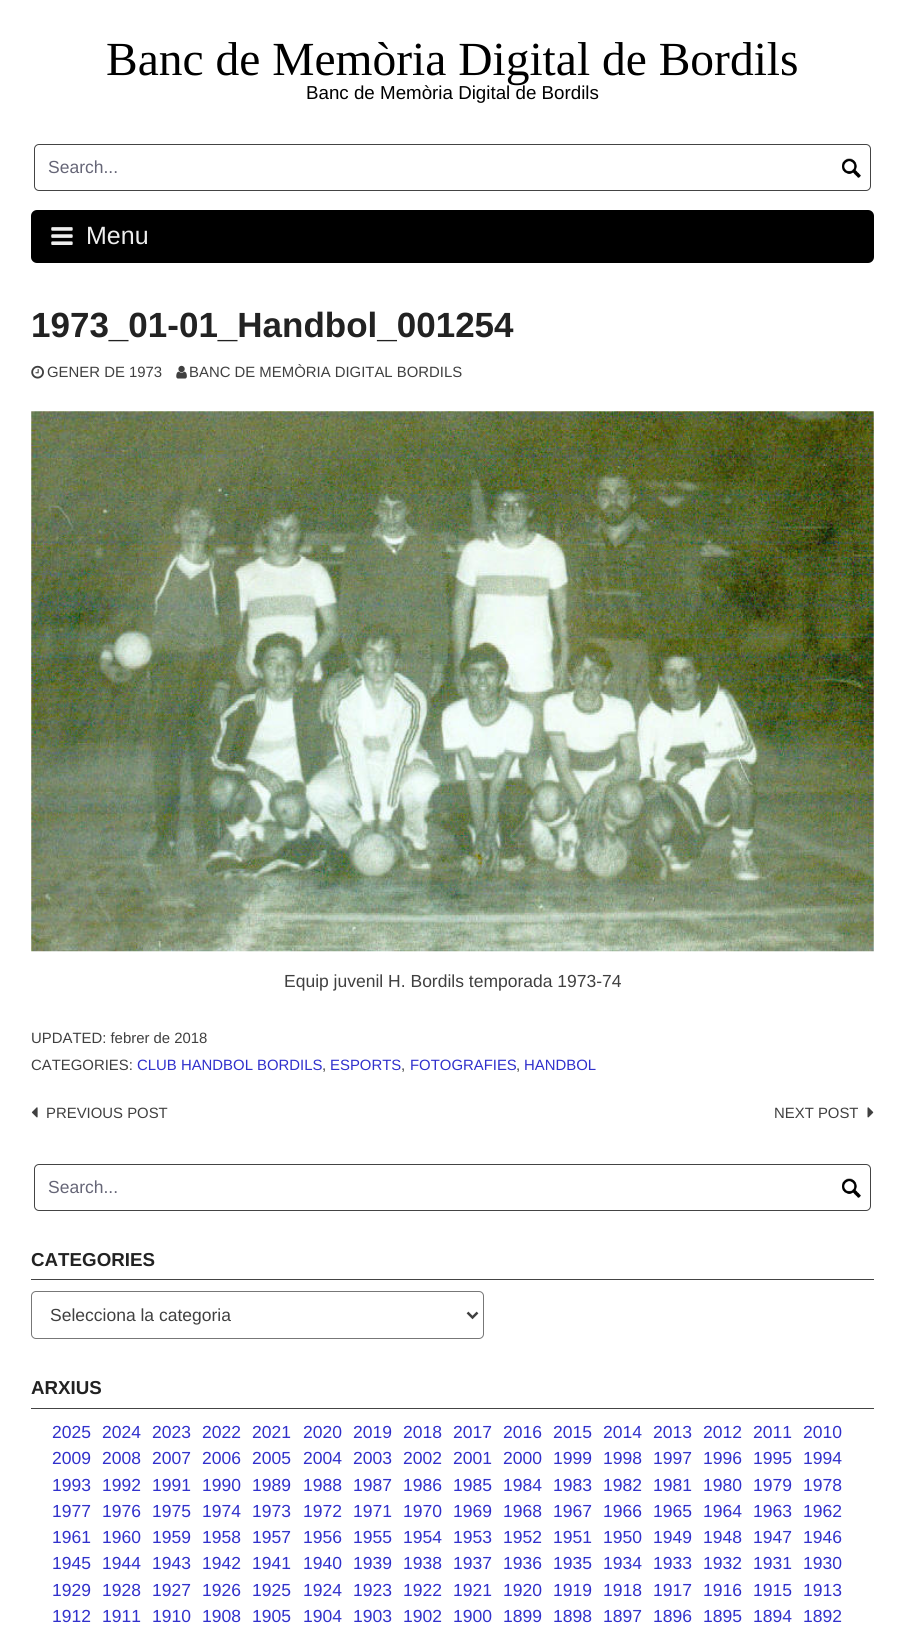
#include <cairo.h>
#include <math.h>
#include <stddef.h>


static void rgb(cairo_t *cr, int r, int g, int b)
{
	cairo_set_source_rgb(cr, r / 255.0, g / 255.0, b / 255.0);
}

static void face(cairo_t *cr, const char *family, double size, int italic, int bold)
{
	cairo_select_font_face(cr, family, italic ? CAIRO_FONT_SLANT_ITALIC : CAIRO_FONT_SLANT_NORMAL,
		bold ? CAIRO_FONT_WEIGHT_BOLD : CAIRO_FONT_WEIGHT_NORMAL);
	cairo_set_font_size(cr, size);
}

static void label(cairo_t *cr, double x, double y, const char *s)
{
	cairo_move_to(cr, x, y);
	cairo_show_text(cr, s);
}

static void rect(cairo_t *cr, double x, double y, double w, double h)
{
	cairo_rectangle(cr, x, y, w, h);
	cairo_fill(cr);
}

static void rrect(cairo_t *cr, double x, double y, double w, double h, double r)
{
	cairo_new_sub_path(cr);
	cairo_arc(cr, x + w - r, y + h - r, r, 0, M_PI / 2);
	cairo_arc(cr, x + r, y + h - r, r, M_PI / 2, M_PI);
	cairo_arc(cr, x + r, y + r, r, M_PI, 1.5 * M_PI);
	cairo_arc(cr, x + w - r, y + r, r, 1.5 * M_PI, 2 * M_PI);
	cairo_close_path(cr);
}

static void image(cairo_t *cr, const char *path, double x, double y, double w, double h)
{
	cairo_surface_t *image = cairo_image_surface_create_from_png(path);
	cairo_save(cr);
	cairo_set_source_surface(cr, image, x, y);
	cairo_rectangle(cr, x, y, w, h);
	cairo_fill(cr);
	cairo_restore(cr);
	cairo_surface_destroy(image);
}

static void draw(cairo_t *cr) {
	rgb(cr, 255, 255, 255);
	cairo_paint(cr);
	face(cr, "Liberation Serif", 47.5, 0, 0);
	rgb(cr, 0, 0, 0);
	label(cr, 106, 75, "Banc de Memòria Digital de Bordils");
	face(cr, "Liberation Sans", 18.75, 0, 0);
	label(cr, 306, 99, "Banc de Memòria Digital de Bordils");
	rrect(cr, 34.5, 144.5, 836, 46, 4.5);
	rgb(cr, 68, 68, 68);
	cairo_set_line_width(cr, 1);
	cairo_stroke(cr);
	face(cr, "Liberation Sans", 17.5, 0, 0);
	rgb(cr, 102, 102, 119);
	label(cr, 48, 173, "Search...");
	image(cr, "image0.png", 842, 158, 19, 20);
	rgb(cr, 0, 0, 0);
	rrect(cr, 31, 210, 843, 53, 6);
	cairo_fill(cr);
	image(cr, "image1.png", 51, 227, 22, 18);
	face(cr, "Liberation Sans", 25, 0, 0);
	rgb(cr, 238, 238, 238);
	label(cr, 86, 244, "Menu");
	face(cr, "Liberation Sans", 35, 0, 1);
	rgb(cr, 34, 34, 34);
	label(cr, 31, 337, "1973_01-01_Handbol_001254");
	image(cr, "image2.png", 31, 365, 13, 14);
	face(cr, "Liberation Sans", 14.9, 0, 0);
	rgb(cr, 64, 64, 64);
	label(cr, 47, 377, "GENER DE 1973");
	image(cr, "image3.png", 176, 365, 11, 14);
	label(cr, 189, 377, "BANC DE MEMÒRIA DIGITAL BORDILS");
	image(cr, "image4.png", 31, 411, 843, 541);
	face(cr, "Liberation Sans", 17.5, 0, 0);
	label(cr, 284, 987, "Equip juvenil H. Bordils temporada 1973-74");
	face(cr, "Liberation Sans", 14.9, 0, 0);
	label(cr, 31, 1043, "UPDATED: febrer de 2018");
	label(cr, 31, 1070, "CATEGORIES:");
	rgb(cr, 48, 48, 204);
	label(cr, 137, 1070, "CLUB HANDBOL BORDILS");
	rgb(cr, 64, 64, 64);
	label(cr, 322, 1070, ",");
	rgb(cr, 48, 48, 204);
	label(cr, 330, 1070, "ESPORTS");
	rgb(cr, 64, 64, 64);
	label(cr, 401, 1070, ",");
	rgb(cr, 48, 48, 204);
	label(cr, 410, 1070, "FOTOGRAFIES");
	rgb(cr, 64, 64, 64);
	label(cr, 516, 1070, ",");
	rgb(cr, 48, 48, 204);
	label(cr, 524, 1070, "HANDBOL");
	image(cr, "image5.png", 31, 1107, 7, 11);
	rgb(cr, 64, 64, 64);
	label(cr, 46, 1118, "PREVIOUS POST");
	label(cr, 774, 1118, "NEXT POST");
	image(cr, "image6.png", 867, 1107, 7, 11);
	rrect(cr, 34.5, 1164.5, 836, 46, 4.5);
	rgb(cr, 68, 68, 68);
	cairo_stroke(cr);
	face(cr, "Liberation Sans", 17.5, 0, 0);
	rgb(cr, 102, 102, 119);
	label(cr, 48, 1193, "Search...");
	image(cr, "image0.png", 842, 1178, 19, 20);
	rgb(cr, 68, 68, 68);
	rect(cr, 31, 1279, 843, 1);
	face(cr, "Liberation Sans", 18.75, 0, 1);
	rgb(cr, 34, 34, 34);
	label(cr, 31, 1266, "CATEGORIES");
	rrect(cr, 31.5, 1291.5, 452, 47, 4.5);
	rgb(cr, 119, 119, 119);
	cairo_stroke(cr);
	cairo_new_path(cr);
	cairo_move_to(cr, 467.5, 1312.5);
	cairo_line_to(cr, 472.5, 1317.5);
	cairo_line_to(cr, 477.5, 1312.5);
	rgb(cr, 64, 64, 64);
	cairo_set_line_width(cr, 2.5);
	cairo_stroke(cr);
	face(cr, "Liberation Sans", 17.5, 0, 0);
	label(cr, 50, 1321, "Selecciona la categoria");
	rgb(cr, 68, 68, 68);
	rect(cr, 31, 1408, 843, 1);
	face(cr, "Liberation Sans", 18.75, 0, 1);
	rgb(cr, 34, 34, 34);
	label(cr, 31, 1394, "ARXIUS");
	face(cr, "Liberation Sans", 17.5, 0, 0);
	rgb(cr, 48, 48, 204);
	label(cr, 52, 1438, "2025");
	label(cr, 102, 1438, "2024");
	label(cr, 152, 1438, "2023");
	label(cr, 202, 1438, "2022");
	label(cr, 252, 1438, "2021");
	label(cr, 303, 1438, "2020");
	label(cr, 353, 1438, "2019");
	label(cr, 403, 1438, "2018");
	label(cr, 453, 1438, "2017");
	label(cr, 503, 1438, "2016");
	label(cr, 553, 1438, "2015");
	label(cr, 603, 1438, "2014");
	label(cr, 653, 1438, "2013");
	label(cr, 703, 1438, "2012");
	label(cr, 753, 1438, "2011");
	label(cr, 803, 1438, "2010");
	label(cr, 52, 1464, "2009");
	label(cr, 102, 1464, "2008");
	label(cr, 152, 1464, "2007");
	label(cr, 202, 1464, "2006");
	label(cr, 252, 1464, "2005");
	label(cr, 303, 1464, "2004");
	label(cr, 353, 1464, "2003");
	label(cr, 403, 1464, "2002");
	label(cr, 453, 1464, "2001");
	label(cr, 503, 1464, "2000");
	label(cr, 553, 1464, "1999");
	label(cr, 603, 1464, "1998");
	label(cr, 653, 1464, "1997");
	label(cr, 703, 1464, "1996");
	label(cr, 753, 1464, "1995");
	label(cr, 803, 1464, "1994");
	label(cr, 52, 1491, "1993");
	label(cr, 102, 1491, "1992");
	label(cr, 152, 1491, "1991");
	label(cr, 202, 1491, "1990");
	label(cr, 252, 1491, "1989");
	label(cr, 303, 1491, "1988");
	label(cr, 353, 1491, "1987");
	label(cr, 403, 1491, "1986");
	label(cr, 453, 1491, "1985");
	label(cr, 503, 1491, "1984");
	label(cr, 553, 1491, "1983");
	label(cr, 603, 1491, "1982");
	label(cr, 653, 1491, "1981");
	label(cr, 703, 1491, "1980");
	label(cr, 753, 1491, "1979");
	label(cr, 803, 1491, "1978");
	label(cr, 52, 1517, "1977");
	label(cr, 102, 1517, "1976");
	label(cr, 152, 1517, "1975");
	label(cr, 202, 1517, "1974");
	label(cr, 252, 1517, "1973");
	label(cr, 303, 1517, "1972");
	label(cr, 353, 1517, "1971");
	label(cr, 403, 1517, "1970");
	label(cr, 453, 1517, "1969");
	label(cr, 503, 1517, "1968");
	label(cr, 553, 1517, "1967");
	label(cr, 603, 1517, "1966");
	label(cr, 653, 1517, "1965");
	label(cr, 703, 1517, "1964");
	label(cr, 753, 1517, "1963");
	label(cr, 803, 1517, "1962");
	label(cr, 52, 1543, "1961");
	label(cr, 102, 1543, "1960");
	label(cr, 152, 1543, "1959");
	label(cr, 202, 1543, "1958");
	label(cr, 252, 1543, "1957");
	label(cr, 303, 1543, "1956");
	label(cr, 353, 1543, "1955");
	label(cr, 403, 1543, "1954");
	label(cr, 453, 1543, "1953");
	label(cr, 503, 1543, "1952");
	label(cr, 553, 1543, "1951");
	label(cr, 603, 1543, "1950");
	label(cr, 653, 1543, "1949");
	label(cr, 703, 1543, "1948");
	label(cr, 753, 1543, "1947");
	label(cr, 803, 1543, "1946");
	label(cr, 52, 1569, "1945");
	label(cr, 102, 1569, "1944");
	label(cr, 152, 1569, "1943");
	label(cr, 202, 1569, "1942");
	label(cr, 252, 1569, "1941");
	label(cr, 303, 1569, "1940");
	label(cr, 353, 1569, "1939");
	label(cr, 403, 1569, "1938");
	label(cr, 453, 1569, "1937");
	label(cr, 503, 1569, "1936");
	label(cr, 553, 1569, "1935");
	label(cr, 603, 1569, "1934");
	label(cr, 653, 1569, "1933");
	label(cr, 703, 1569, "1932");
	label(cr, 753, 1569, "1931");
	label(cr, 803, 1569, "1930");
	label(cr, 52, 1596, "1929");
	label(cr, 102, 1596, "1928");
	label(cr, 152, 1596, "1927");
	label(cr, 202, 1596, "1926");
	label(cr, 252, 1596, "1925");
	label(cr, 303, 1596, "1924");
	label(cr, 353, 1596, "1923");
	label(cr, 403, 1596, "1922");
	label(cr, 453, 1596, "1921");
	label(cr, 503, 1596, "1920");
	label(cr, 553, 1596, "1919");
	label(cr, 603, 1596, "1918");
	label(cr, 653, 1596, "1917");
	label(cr, 703, 1596, "1916");
	label(cr, 753, 1596, "1915");
	label(cr, 803, 1596, "1913");
	label(cr, 52, 1622, "1912");
	label(cr, 102, 1622, "1911");
	label(cr, 152, 1622, "1910");
	label(cr, 202, 1622, "1908");
	label(cr, 252, 1622, "1905");
	label(cr, 303, 1622, "1904");
	label(cr, 353, 1622, "1903");
	label(cr, 403, 1622, "1902");
	label(cr, 453, 1622, "1900");
	label(cr, 503, 1622, "1899");
	label(cr, 553, 1622, "1898");
	label(cr, 603, 1622, "1897");
	label(cr, 653, 1622, "1896");
	label(cr, 703, 1622, "1895");
	label(cr, 753, 1622, "1894");
	label(cr, 803, 1622, "1892");
}

int main(void) {
	cairo_surface_t *surface = cairo_image_surface_create(CAIRO_FORMAT_RGB24, 905, 1628);
	cairo_t *cr = cairo_create(surface);
	cairo_font_options_t *options = cairo_font_options_create();
	cairo_font_options_set_hint_metrics(options, CAIRO_HINT_METRICS_OFF);
	cairo_font_options_set_hint_style(options, CAIRO_HINT_STYLE_NONE);
	cairo_set_font_options(cr, options);
	cairo_set_miter_limit(cr, 4);
	draw(cr);
	cairo_surface_write_to_png(surface, "render.png");
	cairo_font_options_destroy(options);
	cairo_destroy(cr);
	cairo_surface_destroy(surface);
	return 0;
}
